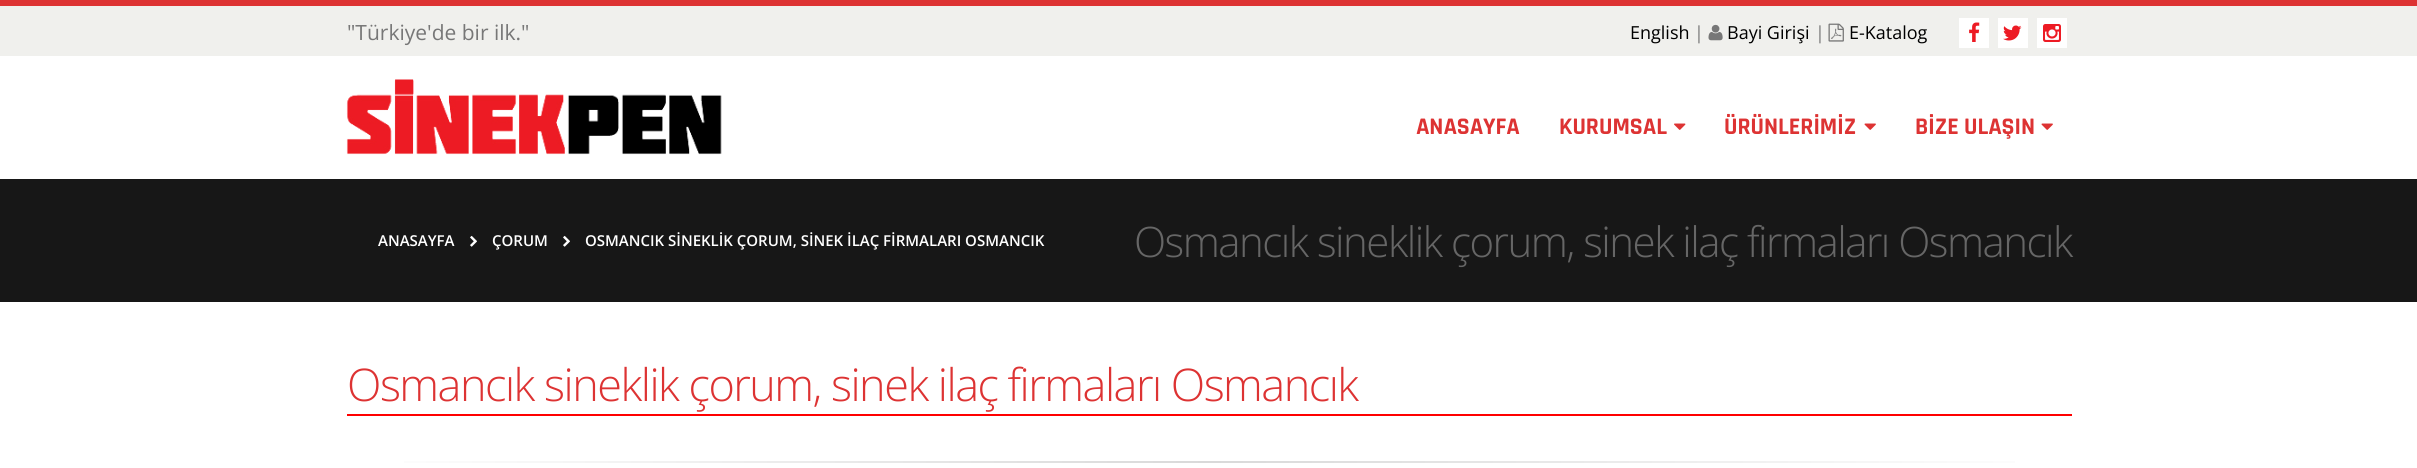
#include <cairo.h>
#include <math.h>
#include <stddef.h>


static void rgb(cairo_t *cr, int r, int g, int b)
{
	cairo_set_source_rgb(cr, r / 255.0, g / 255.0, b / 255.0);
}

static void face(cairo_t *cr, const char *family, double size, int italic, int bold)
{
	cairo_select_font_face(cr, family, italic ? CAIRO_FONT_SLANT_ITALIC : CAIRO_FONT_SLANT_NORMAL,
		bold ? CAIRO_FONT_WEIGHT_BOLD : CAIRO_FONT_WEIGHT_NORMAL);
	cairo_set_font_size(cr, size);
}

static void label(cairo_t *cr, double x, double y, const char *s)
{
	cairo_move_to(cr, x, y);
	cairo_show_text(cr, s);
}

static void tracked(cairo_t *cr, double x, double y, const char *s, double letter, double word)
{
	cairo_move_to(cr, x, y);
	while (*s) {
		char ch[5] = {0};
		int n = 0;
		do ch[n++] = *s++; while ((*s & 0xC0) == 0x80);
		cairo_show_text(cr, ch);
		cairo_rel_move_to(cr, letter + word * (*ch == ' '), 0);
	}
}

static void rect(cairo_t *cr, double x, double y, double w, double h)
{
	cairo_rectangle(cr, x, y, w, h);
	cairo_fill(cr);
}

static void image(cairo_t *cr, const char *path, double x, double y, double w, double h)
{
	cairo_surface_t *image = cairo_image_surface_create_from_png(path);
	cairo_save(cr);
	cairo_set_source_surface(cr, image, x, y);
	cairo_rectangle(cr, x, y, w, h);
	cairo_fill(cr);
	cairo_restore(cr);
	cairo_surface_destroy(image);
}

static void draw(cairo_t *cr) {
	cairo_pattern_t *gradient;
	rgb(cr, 255, 255, 255);
	cairo_paint(cr);
	rgb(cr, 221, 51, 51);
	rect(cr, 0, 0, 2417, 6);
	rgb(cr, 240, 240, 237);
	rect(cr, 0, 6, 2417, 50);
	face(cr, "Open Sans", 21, 0, 0);
	rgb(cr, 119, 119, 119);
	label(cr, 347, 40, "\"Türkiye'de bir ilk.\"");
	face(cr, "Open Sans", 18, 0, 0);
	rgb(cr, 0, 0, 0);
	label(cr, 1630, 39, "English");
	rgb(cr, 119, 119, 119);
	label(cr, 1694, 39, "|");
	image(cr, "image0.png", 1708, 24, 15, 17);
	rgb(cr, 0, 0, 0);
	label(cr, 1727, 39, "Bayi Girişi");
	rgb(cr, 119, 119, 119);
	label(cr, 1815, 39, "|");
	image(cr, "image1.png", 1828, 23, 16, 19);
	rgb(cr, 0, 0, 0);
	label(cr, 1849, 39, "E-Katalog");
	rgb(cr, 255, 255, 255);
	rect(cr, 1959, 18, 30, 30);
	image(cr, "image2.png", 1969, 22, 11, 20);
	rect(cr, 1998, 18, 30, 30);
	image(cr, "image3.png", 2003, 25, 19, 16);
	rect(cr, 2037, 18, 30, 30);
	image(cr, "image4.png", 2043, 24, 18, 18);
	image(cr, "image5.png", 346, 79, 376, 76);
	face(cr, "Rajdhani", 24, 0, 1);
	rgb(cr, 221, 51, 51);
	label(cr, 1416, 134, "ANASAYFA");
	label(cr, 1559, 134, "KURUMSAL");
	image(cr, "image6.png", 1674, 123, 12, 7);
	label(cr, 1724, 134, "ÜRÜNLERİMİZ");
	image(cr, "image7.png", 1864, 123, 12, 7);
	label(cr, 1915, 134, "BİZE ULAŞIN");
	image(cr, "image7.png", 2041, 123, 12, 7);
	rgb(cr, 23, 23, 23);
	rect(cr, 0, 179, 2417, 123);
	face(cr, "Open Sans SemiBold", 15, 0, 0);
	rgb(cr, 255, 255, 255);
	label(cr, 378, 246, "ANASAYFA");
	image(cr, "image8.png", 470, 235, 7, 12);
	label(cr, 492, 246, "ÇORUM");
	image(cr, "image8.png", 563, 235, 7, 12);
	label(cr, 585, 246, "OSMANCIK SİNEKLİK ÇORUM, SİNEK İLAÇ FİRMALARI OSMANCIK");
	face(cr, "Open Sans Light", 42, 0, 0);
	rgb(cr, 102, 102, 102);
	tracked(cr, 1134, 257, "Osmancık sineklik çorum, sinek ilaç firmaları Osmancık", -1.5, 0);
	rgb(cr, 255, 0, 0);
	rect(cr, 347, 414, 1725, 2);
	face(cr, "Open Sans Light", 45, 0, 0);
	rgb(cr, 221, 51, 51);
	tracked(cr, 347, 401, "Osmancık sineklik çorum, sinek ilaç firmaları Osmancık", -1.5, 0);
	gradient = cairo_pattern_create_linear(347, 461, 2072, 461);
	cairo_pattern_add_color_stop_rgba(gradient, 0, 1, 1, 1, 1);
	cairo_pattern_add_color_stop_rgba(gradient, 0.5, 0.851, 0.851, 0.851, 1);
	cairo_pattern_add_color_stop_rgba(gradient, 1, 1, 1, 1, 1);
	cairo_set_source(cr, gradient);
	cairo_pattern_destroy(gradient);
	rect(cr, 404, 461, 1611, 2);
}

int main(void) {
	cairo_surface_t *surface = cairo_image_surface_create(CAIRO_FORMAT_RGB24, 2417, 468);
	cairo_t *cr = cairo_create(surface);
	cairo_font_options_t *options = cairo_font_options_create();
	cairo_font_options_set_hint_metrics(options, CAIRO_HINT_METRICS_OFF);
	cairo_font_options_set_hint_style(options, CAIRO_HINT_STYLE_NONE);
	cairo_set_font_options(cr, options);
	cairo_set_miter_limit(cr, 4);
	draw(cr);
	cairo_surface_write_to_png(surface, "render.png");
	cairo_font_options_destroy(options);
	cairo_destroy(cr);
	cairo_surface_destroy(surface);
	return 0;
}
